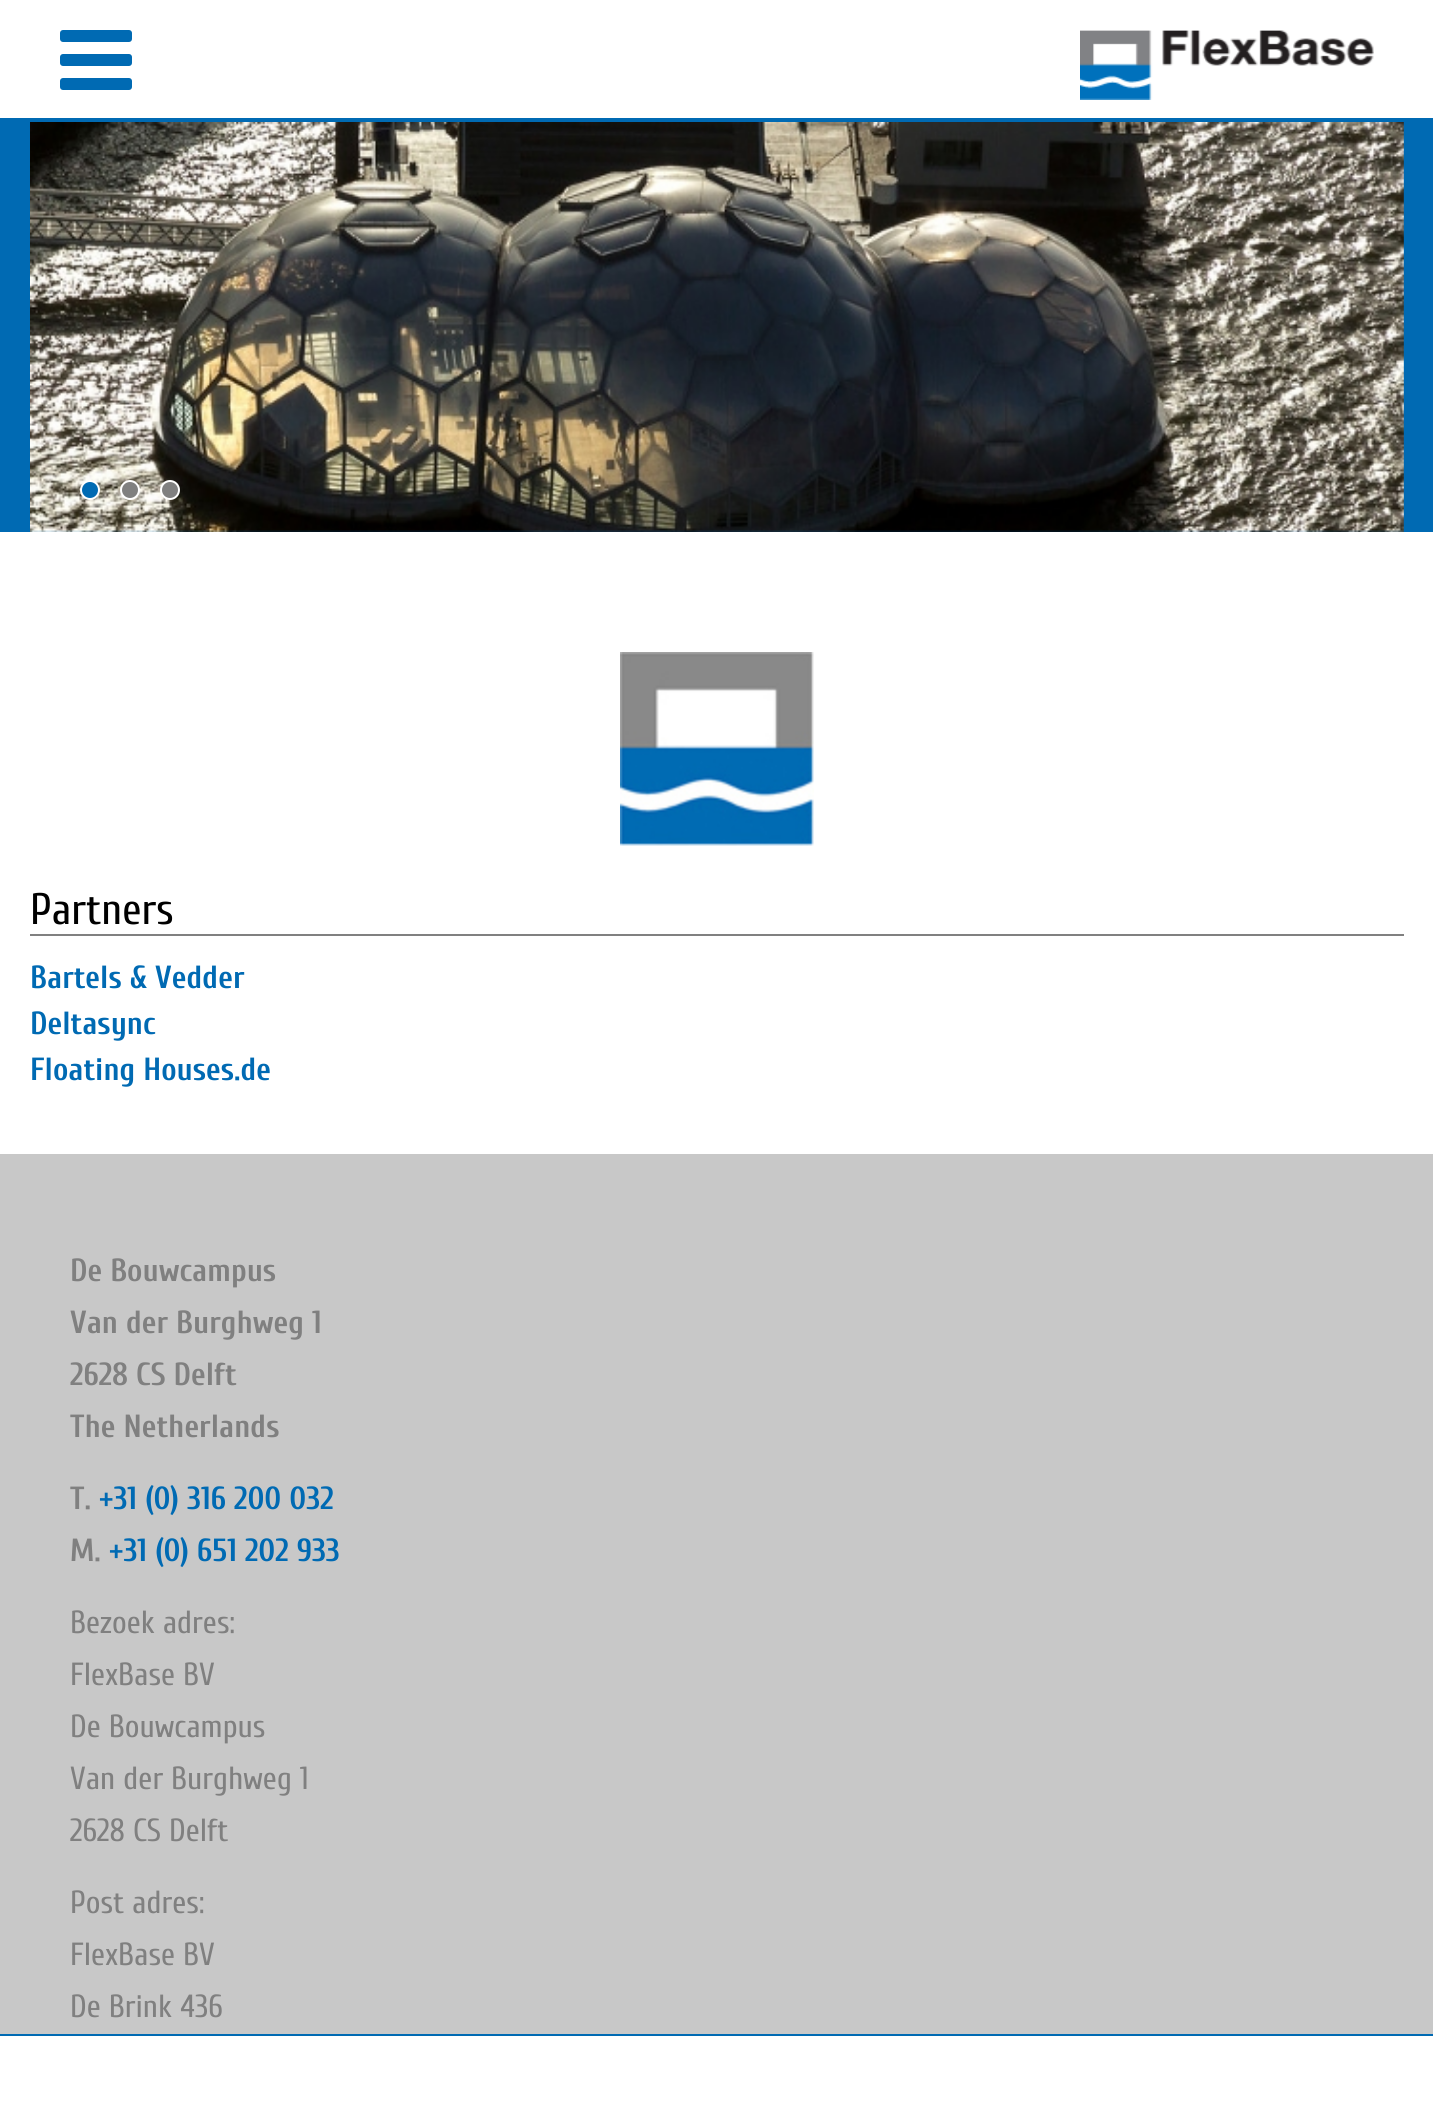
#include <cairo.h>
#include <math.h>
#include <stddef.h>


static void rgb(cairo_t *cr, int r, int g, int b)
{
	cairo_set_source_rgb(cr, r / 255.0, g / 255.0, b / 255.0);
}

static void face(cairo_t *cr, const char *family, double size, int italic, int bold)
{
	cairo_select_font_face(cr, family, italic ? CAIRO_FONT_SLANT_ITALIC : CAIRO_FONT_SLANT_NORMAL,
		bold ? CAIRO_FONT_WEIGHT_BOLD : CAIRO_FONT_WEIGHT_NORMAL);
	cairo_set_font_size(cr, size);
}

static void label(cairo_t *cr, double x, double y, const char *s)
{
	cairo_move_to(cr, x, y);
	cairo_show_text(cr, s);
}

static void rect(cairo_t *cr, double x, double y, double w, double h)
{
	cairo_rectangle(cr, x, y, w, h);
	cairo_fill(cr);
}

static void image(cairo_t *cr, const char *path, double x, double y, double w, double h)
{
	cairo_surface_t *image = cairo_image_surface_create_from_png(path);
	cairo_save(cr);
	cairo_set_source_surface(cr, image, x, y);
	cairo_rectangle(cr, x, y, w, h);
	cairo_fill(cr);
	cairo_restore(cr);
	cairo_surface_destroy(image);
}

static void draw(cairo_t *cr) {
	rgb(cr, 255, 255, 255);
	cairo_paint(cr);
	image(cr, "image0.png", 60, 30, 72, 60);
	image(cr, "image1.png", 1080, 30, 294, 70);
	rgb(cr, 0, 106, 179);
	rect(cr, 0, 118, 1433, 414);
	image(cr, "image2.png", 30, 122, 1374, 410);
	cairo_arc(cr, 90, 490, 9, 0, 2 * M_PI);
	cairo_fill_preserve(cr);
	rgb(cr, 255, 255, 255);
	cairo_stroke(cr);
	rgb(cr, 128, 128, 128);
	cairo_arc(cr, 130, 490, 9, 0, 2 * M_PI);
	cairo_fill_preserve(cr);
	rgb(cr, 255, 255, 255);
	cairo_stroke(cr);
	rgb(cr, 128, 128, 128);
	cairo_arc(cr, 170, 490, 9, 0, 2 * M_PI);
	cairo_fill_preserve(cr);
	rgb(cr, 255, 255, 255);
	cairo_stroke(cr);
	image(cr, "image3.png", 620, 652, 194, 194);
	rgb(cr, 128, 128, 128);
	rect(cr, 30, 934, 1374, 2);
	face(cr, "Cuprum", 44, 0, 0);
	rgb(cr, 0, 0, 0);
	label(cr, 30, 924, "Partners");
	face(cr, "Cuprum", 32, 0, 1);
	rgb(cr, 0, 106, 179);
	label(cr, 30, 988, "Bartels & Vedder");
	label(cr, 30, 1034, "Deltasync");
	label(cr, 30, 1080, "Floating Houses.de");
	rgb(cr, 200, 200, 200);
	rect(cr, 0, 1154, 1433, 880);
	rgb(cr, 128, 128, 128);
	label(cr, 70, 1281, "De Bouwcampus");
	label(cr, 70, 1333, "Van der Burghweg 1");
	label(cr, 70, 1385, "2628 CS Delft");
	label(cr, 70, 1437, "The Netherlands");
	label(cr, 70, 1509, "T.");
	rgb(cr, 0, 106, 179);
	label(cr, 99, 1509, "+31 (0) 316 200 032");
	rgb(cr, 128, 128, 128);
	label(cr, 70, 1561, "M.");
	rgb(cr, 0, 106, 179);
	label(cr, 109, 1561, "+31 (0) 651 202 933");
	face(cr, "Cuprum", 32, 0, 0);
	rgb(cr, 128, 128, 128);
	label(cr, 70, 1633, "Bezoek adres:");
	label(cr, 70, 1685, "FlexBase BV");
	label(cr, 70, 1737, "De Bouwcampus");
	label(cr, 70, 1789, "Van der Burghweg 1");
	label(cr, 70, 1841, "2628 CS Delft");
	label(cr, 70, 1913, "Post adres:");
	label(cr, 70, 1965, "FlexBase BV");
	label(cr, 70, 2017, "De Brink 436");
	rgb(cr, 0, 106, 179);
	rect(cr, 0, 2034, 1433, 2);
}

int main(void) {
	cairo_surface_t *surface = cairo_image_surface_create(CAIRO_FORMAT_RGB24, 1433, 2114);
	cairo_t *cr = cairo_create(surface);
	cairo_font_options_t *options = cairo_font_options_create();
	cairo_font_options_set_hint_metrics(options, CAIRO_HINT_METRICS_OFF);
	cairo_font_options_set_hint_style(options, CAIRO_HINT_STYLE_NONE);
	cairo_set_font_options(cr, options);
	cairo_set_miter_limit(cr, 4);
	draw(cr);
	cairo_surface_write_to_png(surface, "render.png");
	cairo_font_options_destroy(options);
	cairo_destroy(cr);
	cairo_surface_destroy(surface);
	return 0;
}
